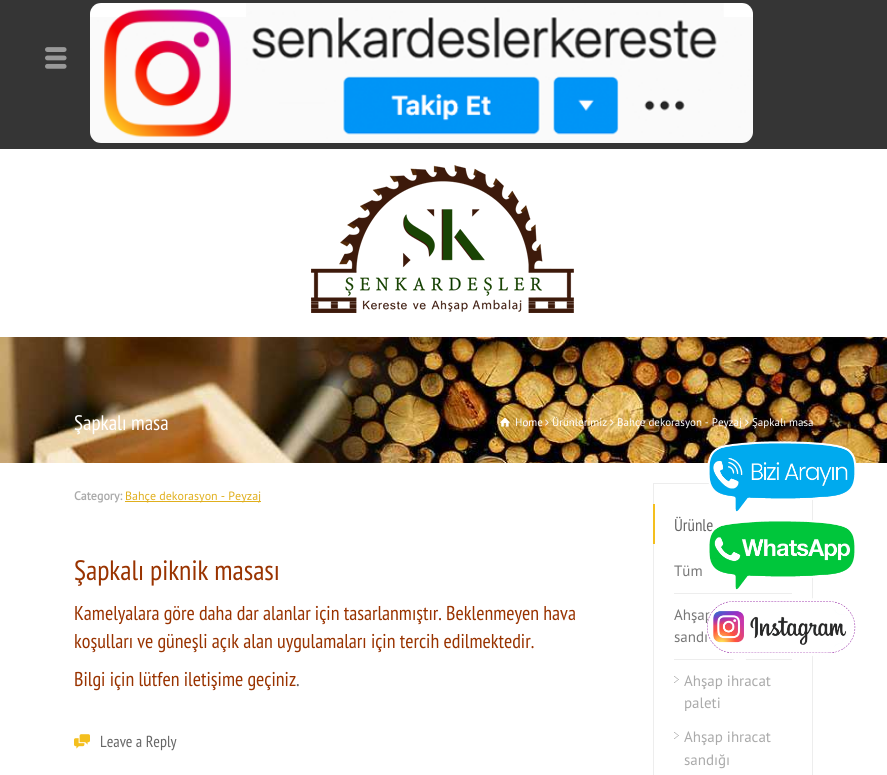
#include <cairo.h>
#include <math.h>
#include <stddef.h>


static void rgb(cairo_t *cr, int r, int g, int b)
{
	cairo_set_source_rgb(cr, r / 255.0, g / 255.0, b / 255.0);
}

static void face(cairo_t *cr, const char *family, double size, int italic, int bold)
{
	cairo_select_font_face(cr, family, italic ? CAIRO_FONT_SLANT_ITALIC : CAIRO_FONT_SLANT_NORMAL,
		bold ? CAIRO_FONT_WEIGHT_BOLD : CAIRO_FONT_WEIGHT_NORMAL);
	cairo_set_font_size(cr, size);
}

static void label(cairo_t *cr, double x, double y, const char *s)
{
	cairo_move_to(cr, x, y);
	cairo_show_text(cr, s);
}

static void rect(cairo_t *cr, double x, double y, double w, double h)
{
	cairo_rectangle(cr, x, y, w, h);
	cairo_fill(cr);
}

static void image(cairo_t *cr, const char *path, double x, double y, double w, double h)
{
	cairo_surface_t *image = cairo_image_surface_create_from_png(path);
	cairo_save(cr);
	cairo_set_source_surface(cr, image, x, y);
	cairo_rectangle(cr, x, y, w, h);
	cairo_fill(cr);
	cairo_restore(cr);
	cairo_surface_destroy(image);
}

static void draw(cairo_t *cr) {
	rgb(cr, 53, 53, 53);
	cairo_paint(cr);
	image(cr, "image0.png", 45, 47, 22, 22);
	image(cr, "image1.png", 90, 3, 663, 140);
	rgb(cr, 255, 255, 255);
	rect(cr, 0, 149, 887, 188);
	image(cr, "image2.png", 311, 165, 263, 148);
	image(cr, "image3.png", 0, 337, 887, 126);
	face(cr, "PT Sans Narrow", 21, 0, 0);
	label(cr, 74, 430, "Şapkalı masa");
	image(cr, "image4.png", 500, 417, 10, 10);
	face(cr, "PT Sans", 11, 0, 0);
	label(cr, 515, 426, "Home");
	image(cr, "image5.png", 545, 419, 4, 7);
	label(cr, 552, 426, "Ürünlerimiz");
	image(cr, "image6.png", 610, 419, 4, 7);
	label(cr, 617, 426, "Bahçe dekorasyon - Peyzaj");
	image(cr, "image7.png", 745, 419, 4, 7);
	label(cr, 752, 426, "Şapkalı masa");
	rect(cr, 0, 463, 887, 312);
	face(cr, "PT Sans", 12, 0, 1);
	rgb(cr, 170, 170, 170);
	label(cr, 74, 500, "Category:");
	rgb(cr, 224, 175, 29);
	rect(cr, 125, 501, 136, 1);
	face(cr, "PT Sans", 12, 0, 0);
	label(cr, 125, 500, "Bahçe dekorasyon - Peyzaj");
	face(cr, "PT Sans Narrow", 28, 0, 0);
	rgb(cr, 153, 51, 0);
	label(cr, 74, 580, "Şapkalı piknik masası");
	face(cr, "PT Sans Narrow", 20, 0, 0);
	label(cr, 74, 620, "Kamelyalara göre daha dar alanlar için tasarlanmıştır. Beklenmeyen hava");
	label(cr, 74, 648, "koşulları ve güneşli açık alan uygulamaları için tercih edilmektedir.");
	label(cr, 74, 686, "Bilgi için lütfen iletişime geçiniz");
	rgb(cr, 102, 102, 102);
	label(cr, 296, 686, ".");
	image(cr, "image8.png", 74, 734, 16, 15);
	face(cr, "PT Sans Narrow", 16, 0, 0);
	label(cr, 100, 747, "Leave a Reply");
	cairo_rectangle(cr, 653.5, 483.5, 159, 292);
	rgb(cr, 237, 237, 237);
	cairo_set_line_width(cr, 1);
	cairo_stroke(cr);
	rgb(cr, 244, 191, 30);
	rect(cr, 653, 504, 2, 40);
	face(cr, "PT Sans Narrow", 17, 0, 0);
	rgb(cr, 102, 102, 102);
	label(cr, 674, 531, "Ürünle");
	rgb(cr, 237, 237, 237);
	rect(cr, 674, 593, 118, 1);
	face(cr, "PT Sans", 15, 0, 0);
	rgb(cr, 119, 119, 119);
	label(cr, 674, 576, "Tüm");
	label(cr, 674, 620, "Ahşap");
	label(cr, 674, 642, "sandı");
	rgb(cr, 237, 237, 237);
	rect(cr, 674, 659, 118, 1);
	image(cr, "image9.png", 674, 676, 5, 7);
	rgb(cr, 170, 170, 170);
	label(cr, 684, 686, "Ahşap ihracat");
	label(cr, 684, 708, "paleti");
	image(cr, "image9.png", 674, 732, 5, 7);
	label(cr, 684, 742, "Ahşap ihracat");
	label(cr, 684, 765, "sandığı");
	image(cr, "image10.png", 707, 441, 149, 71);
	image(cr, "image11.png", 709, 520, 146, 70);
	image(cr, "image12.png", 707, 598, 149, 62);
}

int main(void) {
	cairo_surface_t *surface = cairo_image_surface_create(CAIRO_FORMAT_RGB24, 887, 775);
	cairo_t *cr = cairo_create(surface);
	cairo_font_options_t *options = cairo_font_options_create();
	cairo_font_options_set_hint_metrics(options, CAIRO_HINT_METRICS_OFF);
	cairo_font_options_set_hint_style(options, CAIRO_HINT_STYLE_NONE);
	cairo_set_font_options(cr, options);
	cairo_set_miter_limit(cr, 4);
	draw(cr);
	cairo_surface_write_to_png(surface, "render.png");
	cairo_font_options_destroy(options);
	cairo_destroy(cr);
	cairo_surface_destroy(surface);
	return 0;
}
